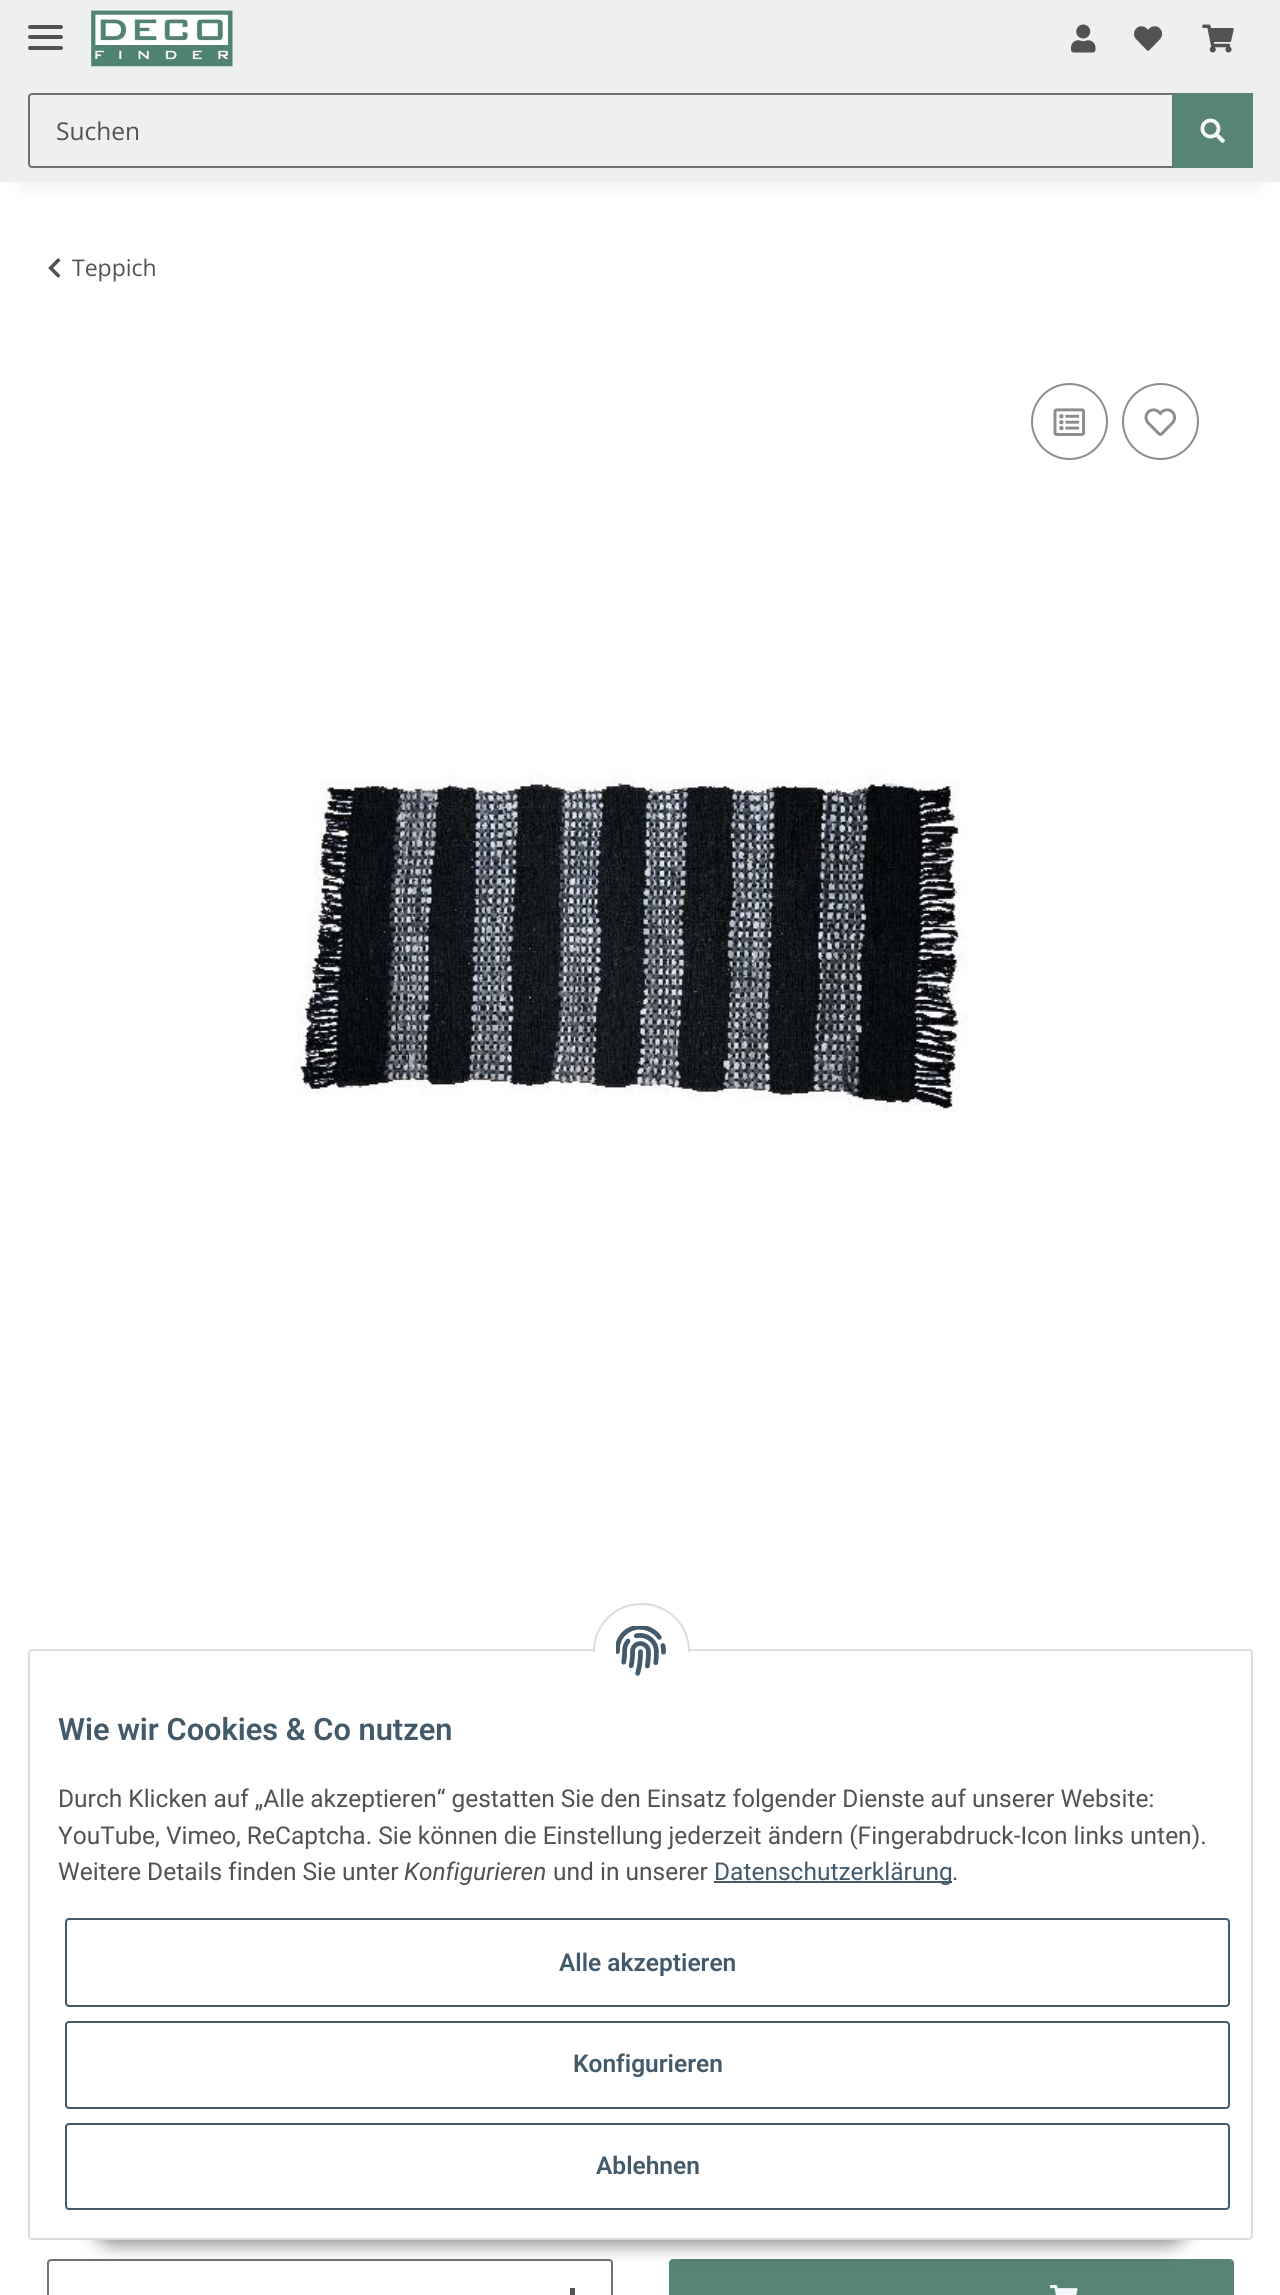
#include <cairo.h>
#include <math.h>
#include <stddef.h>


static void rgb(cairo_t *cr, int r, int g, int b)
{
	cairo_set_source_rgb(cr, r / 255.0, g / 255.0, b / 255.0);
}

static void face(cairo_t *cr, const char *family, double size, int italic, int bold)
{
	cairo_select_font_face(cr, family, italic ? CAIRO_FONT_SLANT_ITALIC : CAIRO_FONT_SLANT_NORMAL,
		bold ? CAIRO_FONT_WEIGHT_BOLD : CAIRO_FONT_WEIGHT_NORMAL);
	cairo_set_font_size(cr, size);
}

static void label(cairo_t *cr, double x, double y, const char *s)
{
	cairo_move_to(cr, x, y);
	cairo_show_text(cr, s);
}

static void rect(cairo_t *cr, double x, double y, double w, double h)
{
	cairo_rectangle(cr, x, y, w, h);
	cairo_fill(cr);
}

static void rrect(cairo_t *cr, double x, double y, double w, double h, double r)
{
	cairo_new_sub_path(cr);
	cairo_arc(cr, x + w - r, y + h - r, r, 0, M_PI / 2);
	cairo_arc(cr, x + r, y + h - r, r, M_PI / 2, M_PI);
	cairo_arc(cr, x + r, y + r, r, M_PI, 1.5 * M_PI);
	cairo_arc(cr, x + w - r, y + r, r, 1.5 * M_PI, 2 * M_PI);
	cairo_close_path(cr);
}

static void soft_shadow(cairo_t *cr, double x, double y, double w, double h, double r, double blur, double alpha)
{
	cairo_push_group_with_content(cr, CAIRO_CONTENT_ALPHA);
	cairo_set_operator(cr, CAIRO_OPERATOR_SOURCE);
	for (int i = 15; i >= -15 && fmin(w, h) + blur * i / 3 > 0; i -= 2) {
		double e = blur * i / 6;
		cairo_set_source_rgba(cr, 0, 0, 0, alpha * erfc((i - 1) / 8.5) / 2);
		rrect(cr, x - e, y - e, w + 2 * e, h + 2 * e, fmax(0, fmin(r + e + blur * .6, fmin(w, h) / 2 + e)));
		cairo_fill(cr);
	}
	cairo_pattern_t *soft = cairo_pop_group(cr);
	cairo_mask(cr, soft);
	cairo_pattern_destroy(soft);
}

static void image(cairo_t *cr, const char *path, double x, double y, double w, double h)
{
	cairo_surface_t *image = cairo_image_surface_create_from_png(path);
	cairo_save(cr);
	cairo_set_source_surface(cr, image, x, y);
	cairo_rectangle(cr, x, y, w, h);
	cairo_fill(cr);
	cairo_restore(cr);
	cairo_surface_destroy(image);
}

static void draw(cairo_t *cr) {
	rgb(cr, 255, 255, 255);
	cairo_paint(cr);
	rgb(cr, 0, 0, 0);
	soft_shadow(cr, 21, 49, 1239, 140, 0, 8, 0.06);
	rgb(cr, 238, 239, 239);
	rect(cr, 0, 0, 1280, 182);
	rgb(cr, 82, 82, 82);
	rrect(cr, 28, 35, 35, 4, 2);
	cairo_fill(cr);
	rrect(cr, 28, 25, 35, 4, 2);
	cairo_fill(cr);
	rrect(cr, 28, 46, 35, 4, 2);
	cairo_fill(cr);
	image(cr, "image0.png", 91, 10, 142, 57);
	image(cr, "image1.png", 1071, 24, 25, 29);
	image(cr, "image2.png", 1134, 26, 29, 25);
	image(cr, "image3.png", 1202, 24, 32, 29);
	cairo_new_path(cr);
	cairo_move_to(cr, 32, 94);
	cairo_line_to(cr, 1173, 94);
	cairo_line_to(cr, 1173, 167);
	cairo_line_to(cr, 32, 167);
	cairo_curve_to(cr, 30.5, 167, 29, 165.5, 29, 164);
	cairo_line_to(cr, 29, 97);
	cairo_curve_to(cr, 29, 95.5, 30.5, 94, 32, 94);
	cairo_close_path(cr);
	rgb(cr, 112, 112, 112);
	cairo_stroke(cr);
	face(cr, "Open Sans", 24.5, 0, 0);
	rgb(cr, 82, 82, 82);
	label(cr, 56, 140, "Suchen");
	rgb(cr, 87, 132, 116);
	rect(cr, 1173, 93, 80, 75);
	image(cr, "image4.png", 1200, 118, 25, 25);
	image(cr, "image5.png", 48, 258, 13, 20);
	face(cr, "Open Sans", 23, 0, 0);
	rgb(cr, 82, 82, 82);
	label(cr, 72, 276, "Teppich");
	cairo_new_path(cr);
	cairo_arc(cr, 1069.5, 421.5, 37.5, 0, 2 * M_PI);
	rgb(cr, 141, 141, 141);
	cairo_stroke(cr);
	image(cr, "image6.png", 1053, 408, 32, 28);
	cairo_arc(cr, 1160.5, 421.5, 37.5, 0, 2 * M_PI);
	cairo_stroke(cr);
	image(cr, "image7.png", 1144, 408, 33, 28);
	image(cr, "image8.png", 293, 769, 675, 344);
	rrect(cr, 48, 2260, 564, 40, 3);
	rgb(cr, 112, 112, 112);
	cairo_stroke(cr);
	rgb(cr, 82, 82, 82);
	rect(cr, 570, 2288, 5, 7);
	rgb(cr, 87, 132, 116);
	rrect(cr, 670, 2260, 563, 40, 3);
	cairo_fill_preserve(cr);
	cairo_stroke(cr);
	image(cr, "image9.png", 1050, 2285, 28, 10);
	rgb(cr, 0, 0, 0);
	soft_shadow(cr, 91, 2189, 1099, 56, 28, 9, 0.45);
	rgb(cr, 255, 255, 255);
	rrect(cr, 29, 1650, 1223, 589, 3);
	cairo_fill_preserve(cr);
	rgb(cr, 221, 221, 221);
	cairo_stroke(cr);
	rgb(cr, 255, 255, 255);
	rrect(cr, 594, 1604, 95, 94, 47);
	cairo_fill_preserve(cr);
	rgb(cr, 221, 221, 221);
	cairo_stroke(cr);
	rgb(cr, 255, 255, 255);
	rect(cr, 593, 1652, 97, 47);
	image(cr, "image10.png", 616, 1626, 50, 50);
	face(cr, "Roboto SemiBold", 30.75, 0, 0);
	rgb(cr, 67, 90, 107);
	label(cr, 58, 1740, "Wie wir Cookies & Co nutzen");
	face(cr, "Roboto", 24.5, 0, 0);
	rgb(cr, 82, 82, 82);
	label(cr, 58, 1807, "Durch Klicken auf „Alle akzeptieren“ gestatten Sie den Einsatz folgender Dienste auf unserer Website:");
	label(cr, 58, 1844, "YouTube, Vimeo, ReCaptcha. Sie können die Einstellung jederzeit ändern (Fingerabdruck-Icon links unten).");
	label(cr, 58, 1880, "Weitere Details finden Sie unter");
	face(cr, "Roboto", 24.5, 1, 0);
	label(cr, 404, 1880, "Konfigurieren");
	face(cr, "Roboto", 24.5, 0, 0);
	label(cr, 553, 1880, "und in unserer");
	rgb(cr, 67, 90, 107);
	rect(cr, 714, 1881, 238, 2);
	label(cr, 714, 1880, "Datenschutzerklärung");
	rgb(cr, 82, 82, 82);
	label(cr, 952, 1880, ".");
	rrect(cr, 66, 1919, 1163, 87, 3);
	rgb(cr, 67, 90, 107);
	cairo_stroke(cr);
	face(cr, "Roboto SemiBold", 24.5, 0, 0);
	label(cr, 559, 1971, "Alle akzeptieren");
	rrect(cr, 66, 2022, 1163, 86, 3);
	cairo_stroke(cr);
	label(cr, 573, 2072, "Konfigurieren");
	rrect(cr, 66, 2124, 1163, 85, 3);
	cairo_stroke(cr);
	label(cr, 596, 2174, "Ablehnen");
}

int main(void) {
	cairo_surface_t *surface = cairo_image_surface_create(CAIRO_FORMAT_RGB24, 1280, 2295);
	cairo_t *cr = cairo_create(surface);
	cairo_font_options_t *options = cairo_font_options_create();
	cairo_font_options_set_hint_metrics(options, CAIRO_HINT_METRICS_OFF);
	cairo_font_options_set_hint_style(options, CAIRO_HINT_STYLE_NONE);
	cairo_set_font_options(cr, options);
	cairo_set_miter_limit(cr, 4);
	draw(cr);
	cairo_surface_write_to_png(surface, "render.png");
	cairo_font_options_destroy(options);
	cairo_destroy(cr);
	cairo_surface_destroy(surface);
	return 0;
}
